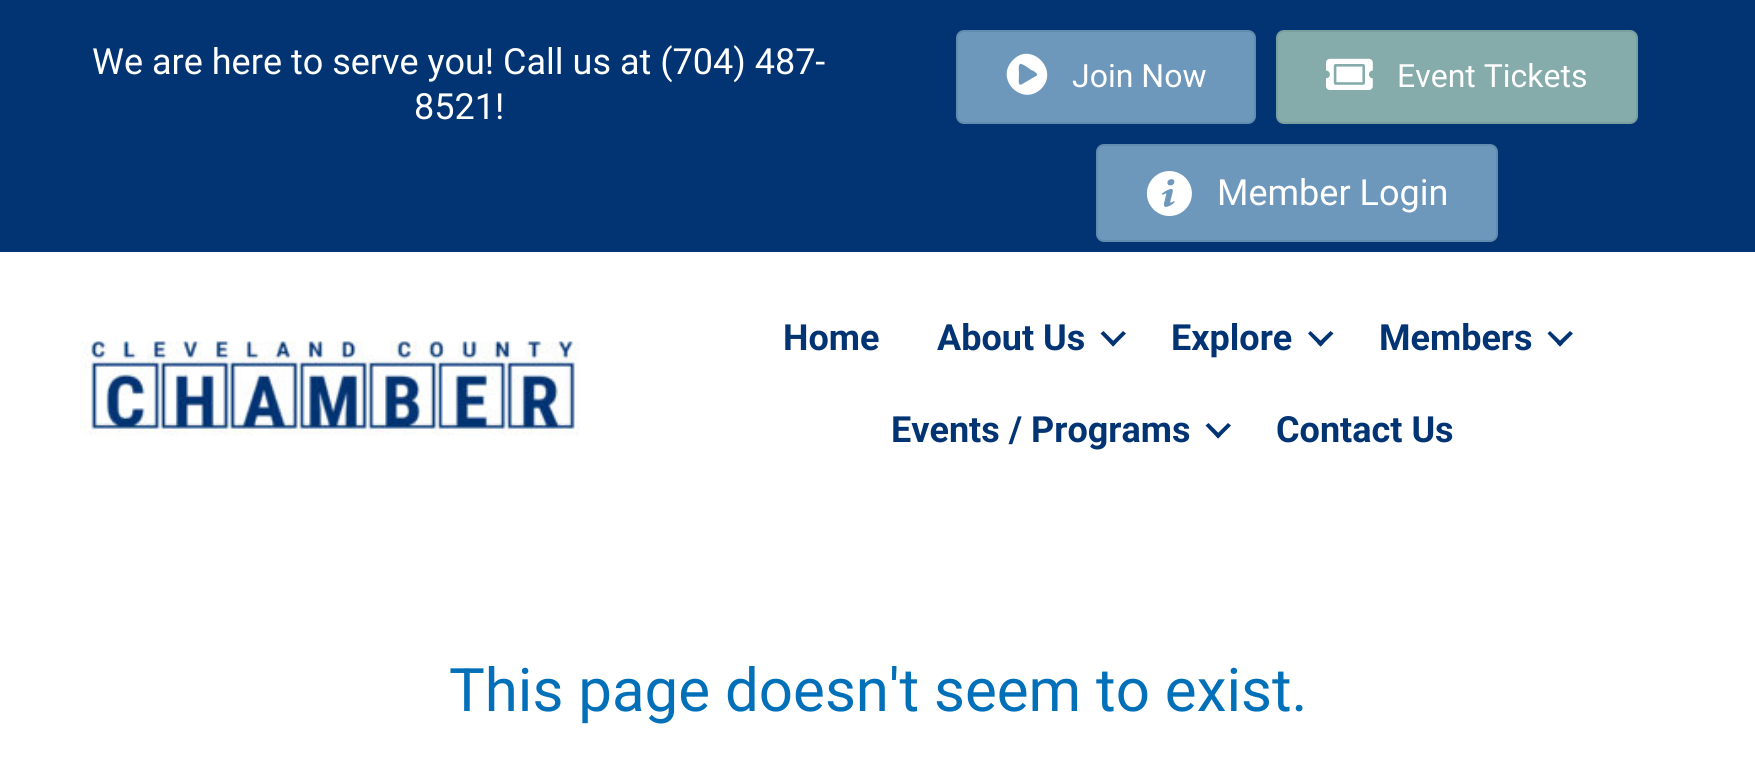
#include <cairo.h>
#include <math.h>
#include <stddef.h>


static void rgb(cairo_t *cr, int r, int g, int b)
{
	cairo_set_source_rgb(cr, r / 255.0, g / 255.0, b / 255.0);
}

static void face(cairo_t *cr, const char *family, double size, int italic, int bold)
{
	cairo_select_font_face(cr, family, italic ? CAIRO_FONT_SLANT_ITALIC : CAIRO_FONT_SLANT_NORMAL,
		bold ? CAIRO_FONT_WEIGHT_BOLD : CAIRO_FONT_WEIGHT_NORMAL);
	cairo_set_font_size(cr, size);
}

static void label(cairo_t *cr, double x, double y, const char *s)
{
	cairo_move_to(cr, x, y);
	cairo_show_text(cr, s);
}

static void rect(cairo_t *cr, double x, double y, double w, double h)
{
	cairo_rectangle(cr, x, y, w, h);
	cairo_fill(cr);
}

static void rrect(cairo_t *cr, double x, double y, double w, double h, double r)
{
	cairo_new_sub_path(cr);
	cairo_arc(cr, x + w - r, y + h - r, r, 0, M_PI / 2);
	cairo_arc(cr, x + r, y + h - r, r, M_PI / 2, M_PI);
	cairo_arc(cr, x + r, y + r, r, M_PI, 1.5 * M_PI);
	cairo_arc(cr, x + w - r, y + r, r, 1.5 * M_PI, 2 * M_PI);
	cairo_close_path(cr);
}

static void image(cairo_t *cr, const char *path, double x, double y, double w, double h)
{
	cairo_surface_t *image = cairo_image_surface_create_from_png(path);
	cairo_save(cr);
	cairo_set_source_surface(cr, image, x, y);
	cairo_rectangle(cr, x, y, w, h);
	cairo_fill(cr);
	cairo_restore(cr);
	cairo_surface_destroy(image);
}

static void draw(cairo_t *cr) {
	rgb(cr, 255, 255, 255);
	cairo_paint(cr);
	rgb(cr, 2, 52, 115);
	rect(cr, 0, 0, 1755, 252);
	face(cr, "Roboto", 36, 0, 0);
	rgb(cr, 255, 255, 255);
	label(cr, 92, 74, "We are here to serve you! Call us at (704) 487-");
	label(cr, 414, 119, "8521!");
	rgb(cr, 110, 152, 187);
	rrect(cr, 957, 31, 298, 92, 7);
	cairo_fill_preserve(cr);
	rgb(cr, 98, 140, 175);
	cairo_stroke(cr);
	rgb(cr, 255, 255, 255);
	cairo_new_path(cr);
	cairo_move_to(cr, 1013, 60);
	cairo_curve_to(cr, 1031, 41, 1060, 70, 1041, 89);
	cairo_curve_to(cr, 1022, 107, 994, 79, 1013, 60);
	cairo_close_path(cr);
	cairo_move_to(cr, 1036, 76);
	cairo_curve_to(cr, 1040, 74, 1032, 70, 1031, 70);
	cairo_curve_to(cr, 1030, 69, 1022, 63, 1020, 64);
	cairo_curve_to(cr, 1018, 65, 1019, 72, 1019, 74);
	cairo_curve_to(cr, 1019, 81, 1017, 88, 1024, 83);
	cairo_close_path(cr);
	cairo_fill(cr);
	face(cr, "Roboto", 32, 0, 0);
	label(cr, 1072, 87, "Join Now");
	rgb(cr, 133, 171, 171);
	rrect(cr, 1277, 31, 360, 92, 7);
	cairo_fill_preserve(cr);
	rgb(cr, 121, 159, 159);
	cairo_stroke(cr);
	image(cr, "image0.png", 1326, 58, 47, 32);
	rgb(cr, 255, 255, 255);
	label(cr, 1397, 87, "Event Tickets");
	rgb(cr, 110, 152, 187);
	rrect(cr, 1097, 145, 400, 96, 7);
	cairo_fill_preserve(cr);
	rgb(cr, 98, 140, 175);
	cairo_stroke(cr);
	image(cr, "image1.png", 1146, 171, 46, 45);
	face(cr, "Roboto", 36, 0, 0);
	rgb(cr, 255, 255, 255);
	label(cr, 1217, 205, "Member Login");
	image(cr, "image2.png", 80, 341, 500, 95);
	face(cr, "Roboto", 36, 0, 1);
	rgb(cr, 2, 52, 115);
	label(cr, 783, 350, "Home");
	label(cr, 937, 350, "About Us");
	cairo_new_path(cr);
	cairo_move_to(cr, 1123, 331);
	cairo_line_to(cr, 1126, 333.5);
	cairo_line_to(cr, 1113, 346.5);
	cairo_line_to(cr, 1110.5, 343.5);
	cairo_close_path(cr);
	cairo_fill(cr);
	cairo_new_path(cr);
	cairo_move_to(cr, 1103.5, 331);
	cairo_line_to(cr, 1116, 343.5);
	cairo_line_to(cr, 1113, 346.5);
	cairo_line_to(cr, 1100.5, 333.5);
	cairo_close_path(cr);
	cairo_fill(cr);
	label(cr, 1171, 350, "Explore");
	cairo_new_path(cr);
	cairo_move_to(cr, 1330.5, 331);
	cairo_line_to(cr, 1333.5, 333.5);
	cairo_line_to(cr, 1320.5, 346.5);
	cairo_line_to(cr, 1317.5, 343.5);
	cairo_close_path(cr);
	cairo_fill(cr);
	cairo_new_path(cr);
	cairo_move_to(cr, 1310.5, 331);
	cairo_line_to(cr, 1323.5, 343.5);
	cairo_line_to(cr, 1320.5, 346.5);
	cairo_line_to(cr, 1308, 333.5);
	cairo_close_path(cr);
	cairo_fill(cr);
	label(cr, 1379, 350, "Members");
	cairo_new_path(cr);
	cairo_move_to(cr, 1570, 331);
	cairo_line_to(cr, 1573, 333.5);
	cairo_line_to(cr, 1560, 346.5);
	cairo_line_to(cr, 1557, 343.5);
	cairo_close_path(cr);
	cairo_fill(cr);
	cairo_new_path(cr);
	cairo_move_to(cr, 1550, 331);
	cairo_line_to(cr, 1563, 343.5);
	cairo_line_to(cr, 1560, 346.5);
	cairo_line_to(cr, 1547.5, 333.5);
	cairo_close_path(cr);
	cairo_fill(cr);
	label(cr, 891, 442, "Events / Programs");
	cairo_new_path(cr);
	cairo_move_to(cr, 1228, 423);
	cairo_line_to(cr, 1231, 425.5);
	cairo_line_to(cr, 1218, 438.5);
	cairo_line_to(cr, 1215.5, 435.5);
	cairo_close_path(cr);
	cairo_fill(cr);
	cairo_new_path(cr);
	cairo_move_to(cr, 1208.5, 423);
	cairo_line_to(cr, 1221, 435.5);
	cairo_line_to(cr, 1218, 438.5);
	cairo_line_to(cr, 1205.5, 425.5);
	cairo_close_path(cr);
	cairo_fill(cr);
	label(cr, 1276, 442, "Contact Us");
	face(cr, "Roboto", 60, 0, 0);
	rgb(cr, 1, 112, 185);
	label(cr, 449, 711, "This page doesn't seem to exist.");
}

int main(void) {
	cairo_surface_t *surface = cairo_image_surface_create(CAIRO_FORMAT_RGB24, 1755, 777);
	cairo_t *cr = cairo_create(surface);
	cairo_font_options_t *options = cairo_font_options_create();
	cairo_font_options_set_hint_metrics(options, CAIRO_HINT_METRICS_OFF);
	cairo_font_options_set_hint_style(options, CAIRO_HINT_STYLE_NONE);
	cairo_set_font_options(cr, options);
	cairo_set_miter_limit(cr, 4);
	draw(cr);
	cairo_surface_write_to_png(surface, "render.png");
	cairo_font_options_destroy(options);
	cairo_destroy(cr);
	cairo_surface_destroy(surface);
	return 0;
}
